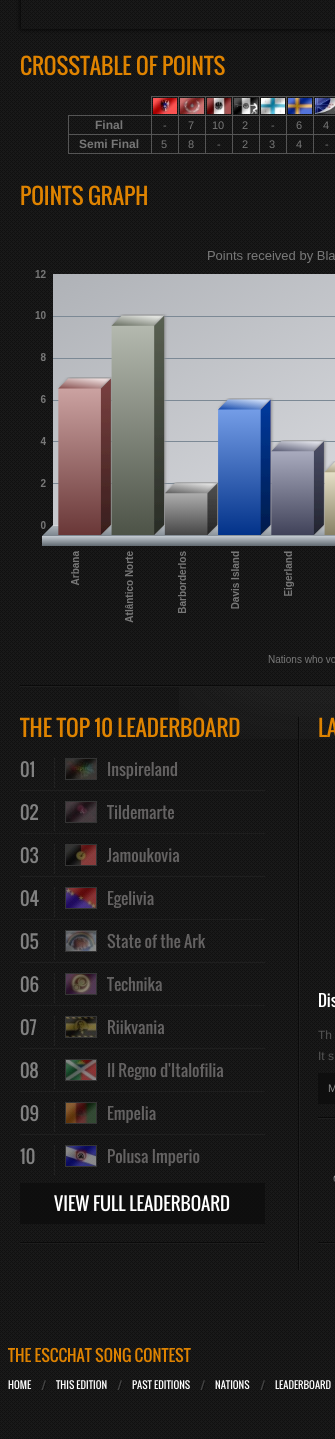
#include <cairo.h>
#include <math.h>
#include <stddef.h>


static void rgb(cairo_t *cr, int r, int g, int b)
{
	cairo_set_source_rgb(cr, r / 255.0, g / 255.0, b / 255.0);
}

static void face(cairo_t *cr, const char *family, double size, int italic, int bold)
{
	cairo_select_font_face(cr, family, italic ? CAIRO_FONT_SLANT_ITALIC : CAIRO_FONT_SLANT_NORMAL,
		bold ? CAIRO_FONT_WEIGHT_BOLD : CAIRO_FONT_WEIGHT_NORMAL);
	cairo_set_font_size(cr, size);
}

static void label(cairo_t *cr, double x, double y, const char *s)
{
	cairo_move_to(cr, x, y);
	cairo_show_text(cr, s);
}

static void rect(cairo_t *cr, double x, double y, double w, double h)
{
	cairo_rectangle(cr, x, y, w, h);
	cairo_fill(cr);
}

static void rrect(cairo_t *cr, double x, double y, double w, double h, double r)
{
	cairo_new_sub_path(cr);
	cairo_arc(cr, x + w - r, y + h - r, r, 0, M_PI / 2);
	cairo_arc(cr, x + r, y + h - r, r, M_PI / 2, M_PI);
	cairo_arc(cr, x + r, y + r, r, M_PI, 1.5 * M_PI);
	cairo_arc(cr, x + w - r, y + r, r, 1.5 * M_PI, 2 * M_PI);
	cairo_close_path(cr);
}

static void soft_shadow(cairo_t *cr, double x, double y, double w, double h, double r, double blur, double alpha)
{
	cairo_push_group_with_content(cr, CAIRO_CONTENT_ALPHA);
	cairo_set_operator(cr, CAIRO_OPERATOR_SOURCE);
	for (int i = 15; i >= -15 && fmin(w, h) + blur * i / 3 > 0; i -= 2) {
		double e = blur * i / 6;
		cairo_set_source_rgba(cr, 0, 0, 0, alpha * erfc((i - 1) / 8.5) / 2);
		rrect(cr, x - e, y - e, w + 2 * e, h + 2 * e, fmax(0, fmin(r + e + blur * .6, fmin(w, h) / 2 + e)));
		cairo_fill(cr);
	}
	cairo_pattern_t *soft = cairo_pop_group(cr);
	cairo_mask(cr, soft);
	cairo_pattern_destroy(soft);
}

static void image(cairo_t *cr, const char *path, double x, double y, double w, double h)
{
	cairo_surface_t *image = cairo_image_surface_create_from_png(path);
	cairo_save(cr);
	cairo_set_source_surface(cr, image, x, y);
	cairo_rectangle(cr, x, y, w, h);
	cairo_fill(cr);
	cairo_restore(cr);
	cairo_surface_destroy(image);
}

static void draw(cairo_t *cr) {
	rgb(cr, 25, 25, 25);
	cairo_paint(cr);
	image(cr, "image0.png", 0, 0, 335, 1439);
	image(cr, "image1.png", 20, 685, 315, 2);
	cairo_save(cr);
	cairo_set_fill_rule(cr, CAIRO_FILL_RULE_EVEN_ODD);
	cairo_new_path(cr);
	cairo_move_to(cr, 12, 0);
	cairo_line_to(cr, 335, 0);
	cairo_line_to(cr, 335, 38);
	cairo_line_to(cr, 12, 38);
	cairo_close_path(cr);
	cairo_move_to(cr, 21, -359);
	cairo_line_to(cr, 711, -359);
	cairo_line_to(cr, 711, 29);
	cairo_line_to(cr, 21, 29);
	cairo_close_path(cr);
	cairo_clip(cr);
	rgb(cr, 0, 0, 0);
	soft_shadow(cr, 21, -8, 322, 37, 0, 2.5, 1);
	cairo_restore(cr);
	face(cr, "Oswald", 22, 0, 0);
	rgb(cr, 223, 131, 0);
	label(cr, 20, 75, "CROSSTABLE OF POINTS");
	rgb(cr, 85, 85, 85);
	rect(cr, 313, 96, 22, 1);
	rect(cr, 313, 115, 22, 1);
	rect(cr, 313, 134, 22, 1);
	rect(cr, 313, 153, 22, 1);
	rect(cr, 313, 134, 1, 20);
	rect(cr, 286, 134, 28, 1);
	rect(cr, 313, 115, 1, 20);
	rect(cr, 286, 115, 28, 1);
	rect(cr, 313, 96, 1, 20);
	rect(cr, 286, 96, 28, 1);
	rect(cr, 286, 153, 28, 1);
	rect(cr, 286, 134, 1, 20);
	rect(cr, 259, 134, 28, 1);
	rect(cr, 286, 115, 1, 20);
	rect(cr, 259, 115, 28, 1);
	rect(cr, 286, 96, 1, 20);
	rect(cr, 259, 96, 28, 1);
	rect(cr, 259, 153, 28, 1);
	rect(cr, 259, 134, 1, 20);
	rect(cr, 232, 134, 28, 1);
	rect(cr, 259, 115, 1, 20);
	rect(cr, 232, 115, 28, 1);
	rect(cr, 259, 96, 1, 20);
	rect(cr, 232, 96, 28, 1);
	rect(cr, 232, 153, 28, 1);
	rect(cr, 232, 134, 1, 20);
	rect(cr, 205, 134, 28, 1);
	rect(cr, 232, 115, 1, 20);
	rect(cr, 205, 115, 28, 1);
	rect(cr, 232, 96, 1, 20);
	rect(cr, 205, 96, 28, 1);
	rect(cr, 205, 153, 28, 1);
	rect(cr, 205, 134, 1, 20);
	rect(cr, 178, 134, 28, 1);
	rect(cr, 205, 115, 1, 20);
	rect(cr, 178, 115, 28, 1);
	rect(cr, 205, 96, 1, 20);
	rect(cr, 178, 96, 28, 1);
	rect(cr, 178, 153, 28, 1);
	rect(cr, 178, 134, 1, 20);
	rect(cr, 151, 134, 28, 1);
	rect(cr, 178, 115, 1, 20);
	rect(cr, 151, 115, 28, 1);
	rect(cr, 178, 96, 1, 20);
	rect(cr, 151, 96, 28, 1);
	rect(cr, 151, 153, 28, 1);
	rect(cr, 151, 134, 1, 20);
	rect(cr, 68, 134, 84, 1);
	rect(cr, 151, 115, 1, 20);
	rect(cr, 68, 115, 84, 1);
	rect(cr, 151, 96, 1, 20);
	image(cr, "image2.png", 153, 98, 24, 16);
	image(cr, "image3.png", 180, 98, 24, 16);
	image(cr, "image4.png", 207, 98, 24, 16);
	image(cr, "image5.png", 234, 98, 24, 16);
	image(cr, "image6.png", 261, 98, 24, 16);
	image(cr, "image7.png", 288, 98, 24, 16);
	image(cr, "image8.png", 315, 98, 20, 16);
	rect(cr, 68, 153, 84, 1);
	rect(cr, 68, 134, 1, 20);
	rect(cr, 68, 115, 1, 20);
	face(cr, "Liberation Sans", 12, 0, 1);
	rgb(cr, 119, 119, 119);
	label(cr, 95, 129, "Final");
	face(cr, "Liberation Sans", 11, 0, 0);
	label(cr, 163, 129, "-");
	label(cr, 188, 129, "7");
	label(cr, 212, 129, "10");
	label(cr, 242, 129, "2");
	label(cr, 271, 129, "-");
	label(cr, 296, 129, "6");
	label(cr, 323, 129, "4");
	face(cr, "Liberation Sans", 12, 0, 1);
	label(cr, 79, 148, "Semi Final");
	face(cr, "Liberation Sans", 11, 0, 0);
	label(cr, 161, 148, "5");
	label(cr, 188, 148, "8");
	label(cr, 217, 148, "-");
	label(cr, 242, 148, "2");
	label(cr, 269, 148, "3");
	label(cr, 296, 148, "4");
	label(cr, 325, 148, "-");
	face(cr, "Oswald", 22, 0, 0);
	rgb(cr, 223, 131, 0);
	label(cr, 20, 205, "POINTS GRAPH");
	image(cr, "image9.png", 35, 251, 300, 412);
	image(cr, "image10.png", 179, 687, 156, 52);
	image(cr, "image11.png", 298, 717, 2, 553);
	image(cr, "image12.png", 20, 1242, 245, 2);
	label(cr, 20, 737, "THE TOP 10 LEADERBOARD");
	image(cr, "image13.png", 54, 758, 1, 30);
	face(cr, "Oswald", 18, 0, 0);
	rgb(cr, 129, 129, 129);
	label(cr, 20, 777, "01");
	cairo_rectangle(cr, 65.5, 758.5, 31, 21);
	cairo_set_source_rgba(cr, 0.333, 0.333, 0.333, 0.5);
	cairo_set_line_width(cr, 1);
	cairo_stroke(cr);
	image(cr, "image14.png", 66, 759, 30, 20);
	face(cr, "Oswald", 16, 0, 0);
	rgb(cr, 100, 98, 98);
	label(cr, 107, 776, "Inspireland");
	rgb(cr, 30, 30, 30);
	rect(cr, 20, 790, 245, 1);
	image(cr, "image15.png", 54, 801, 1, 30);
	face(cr, "Oswald", 18, 0, 0);
	rgb(cr, 129, 129, 129);
	label(cr, 20, 820, "02");
	cairo_rectangle(cr, 65.5, 801.5, 31, 21);
	cairo_set_source_rgba(cr, 0.333, 0.333, 0.333, 0.5);
	cairo_stroke(cr);
	image(cr, "image16.png", 66, 802, 30, 20);
	face(cr, "Oswald", 16, 0, 0);
	rgb(cr, 100, 98, 98);
	label(cr, 107, 819, "Tildemarte");
	rgb(cr, 30, 30, 30);
	rect(cr, 20, 833, 245, 1);
	image(cr, "image13.png", 54, 844, 1, 30);
	face(cr, "Oswald", 18, 0, 0);
	rgb(cr, 129, 129, 129);
	label(cr, 20, 863, "03");
	cairo_rectangle(cr, 65.5, 844.5, 31, 21);
	cairo_set_source_rgba(cr, 0.333, 0.333, 0.333, 0.5);
	cairo_stroke(cr);
	image(cr, "image17.png", 66, 845, 30, 20);
	face(cr, "Oswald", 16, 0, 0);
	rgb(cr, 100, 98, 98);
	label(cr, 107, 862, "Jamoukovia");
	rgb(cr, 30, 30, 30);
	rect(cr, 20, 876, 245, 1);
	image(cr, "image15.png", 54, 887, 1, 30);
	face(cr, "Oswald", 18, 0, 0);
	rgb(cr, 129, 129, 129);
	label(cr, 20, 906, "04");
	cairo_rectangle(cr, 65.5, 887.5, 31, 21);
	cairo_set_source_rgba(cr, 0.333, 0.333, 0.333, 0.5);
	cairo_stroke(cr);
	image(cr, "image18.png", 66, 888, 30, 20);
	face(cr, "Oswald", 16, 0, 0);
	rgb(cr, 100, 98, 98);
	label(cr, 107, 905, "Egelivia");
	rgb(cr, 30, 30, 30);
	rect(cr, 20, 919, 245, 1);
	image(cr, "image13.png", 54, 930, 1, 30);
	face(cr, "Oswald", 18, 0, 0);
	rgb(cr, 129, 129, 129);
	label(cr, 20, 949, "05");
	cairo_rectangle(cr, 65.5, 930.5, 31, 21);
	cairo_set_source_rgba(cr, 0.333, 0.333, 0.333, 0.5);
	cairo_stroke(cr);
	image(cr, "image19.png", 66, 931, 30, 20);
	face(cr, "Oswald", 16, 0, 0);
	rgb(cr, 100, 98, 98);
	label(cr, 107, 948, "State of the Ark");
	rgb(cr, 30, 30, 30);
	rect(cr, 20, 962, 245, 1);
	image(cr, "image15.png", 54, 973, 1, 30);
	face(cr, "Oswald", 18, 0, 0);
	rgb(cr, 129, 129, 129);
	label(cr, 20, 992, "06");
	cairo_rectangle(cr, 65.5, 973.5, 31, 21);
	cairo_set_source_rgba(cr, 0.333, 0.333, 0.333, 0.5);
	cairo_stroke(cr);
	image(cr, "image20.png", 66, 974, 30, 20);
	face(cr, "Oswald", 16, 0, 0);
	rgb(cr, 100, 98, 98);
	label(cr, 107, 991, "Technika");
	rgb(cr, 30, 30, 30);
	rect(cr, 20, 1005, 245, 1);
	image(cr, "image13.png", 54, 1016, 1, 30);
	face(cr, "Oswald", 18, 0, 0);
	rgb(cr, 129, 129, 129);
	label(cr, 20, 1035, "07");
	cairo_rectangle(cr, 65.5, 1016.5, 31, 21);
	cairo_set_source_rgba(cr, 0.333, 0.333, 0.333, 0.5);
	cairo_stroke(cr);
	image(cr, "image21.png", 66, 1017, 30, 20);
	face(cr, "Oswald", 16, 0, 0);
	rgb(cr, 100, 98, 98);
	label(cr, 107, 1034, "Riikvania");
	rgb(cr, 30, 30, 30);
	rect(cr, 20, 1048, 245, 1);
	image(cr, "image15.png", 54, 1059, 1, 30);
	face(cr, "Oswald", 18, 0, 0);
	rgb(cr, 129, 129, 129);
	label(cr, 20, 1078, "08");
	cairo_rectangle(cr, 65.5, 1059.5, 31, 21);
	cairo_set_source_rgba(cr, 0.333, 0.333, 0.333, 0.5);
	cairo_stroke(cr);
	image(cr, "image22.png", 66, 1060, 30, 20);
	face(cr, "Oswald", 16, 0, 0);
	rgb(cr, 100, 98, 98);
	label(cr, 107, 1077, "Il Regno d'Italofilia");
	rgb(cr, 30, 30, 30);
	rect(cr, 20, 1091, 245, 1);
	image(cr, "image13.png", 54, 1102, 1, 30);
	face(cr, "Oswald", 18, 0, 0);
	rgb(cr, 129, 129, 129);
	label(cr, 20, 1121, "09");
	cairo_rectangle(cr, 65.5, 1102.5, 31, 21);
	cairo_set_source_rgba(cr, 0.333, 0.333, 0.333, 0.5);
	cairo_stroke(cr);
	image(cr, "image23.png", 66, 1103, 30, 20);
	face(cr, "Oswald", 16, 0, 0);
	rgb(cr, 100, 98, 98);
	label(cr, 107, 1120, "Empelia");
	rgb(cr, 30, 30, 30);
	rect(cr, 20, 1134, 245, 1);
	image(cr, "image15.png", 54, 1145, 1, 30);
	face(cr, "Oswald", 18, 0, 0);
	rgb(cr, 129, 129, 129);
	label(cr, 20, 1164, "10");
	cairo_rectangle(cr, 65.5, 1145.5, 31, 21);
	cairo_set_source_rgba(cr, 0.333, 0.333, 0.333, 0.5);
	cairo_stroke(cr);
	image(cr, "image24.png", 66, 1146, 30, 20);
	face(cr, "Oswald", 16, 0, 0);
	rgb(cr, 100, 98, 98);
	label(cr, 107, 1163, "Polusa Imperio");
	cairo_set_source_rgba(cr, 0.051, 0.051, 0.051, 0.82);
	rect(cr, 20, 1183, 245, 41);
	face(cr, "Oswald", 18, 0, 0);
	rgb(cr, 255, 255, 255);
	label(cr, 54, 1211, "VIEW FULL LEADERBOARD");
	image(cr, "image25.png", 318, 1242, 17, 2);
	face(cr, "Oswald", 22, 0, 0);
	rgb(cr, 223, 131, 0);
	label(cr, 318, 737, "LA");
	image(cr, "image25.png", 318, 1117, 17, 2);
	face(cr, "Oswald", 16, 0, 0);
	rgb(cr, 255, 255, 255);
	label(cr, 318, 1007, "Dis");
	face(cr, "Liberation Sans", 12, 0, 0);
	rgb(cr, 84, 84, 84);
	label(cr, 318, 1039, "Th");
	label(cr, 318, 1060, "It s");
	cairo_set_source_rgba(cr, 0.051, 0.051, 0.051, 0.82);
	rect(cr, 318, 1073, 17, 31);
	face(cr, "Liberation Sans", 11, 0, 0);
	rgb(cr, 136, 136, 136);
	label(cr, 328, 1092, "M");
	image(cr, "image26.png", 333, 1175, 2, 7);
	face(cr, "Oswald", 16, 0, 0);
	rgb(cr, 223, 131, 0);
	label(cr, 8, 1362, "THE ESCCHAT SONG CONTEST");
	face(cr, "Oswald", 10, 0, 0);
	rgb(cr, 255, 255, 255);
	label(cr, 8, 1389, "HOME");
	image(cr, "image27.png", 41, 1380, 5, 10);
	label(cr, 56, 1389, "THIS EDITION");
	image(cr, "image27.png", 117, 1380, 5, 10);
	label(cr, 132, 1389, "PAST EDITIONS");
	image(cr, "image28.png", 200, 1380, 5, 10);
	label(cr, 215, 1389, "NATIONS");
	image(cr, "image28.png", 260, 1380, 5, 10);
	label(cr, 275, 1389, "LEADERBOARD");
}

int main(void) {
	cairo_surface_t *surface = cairo_image_surface_create(CAIRO_FORMAT_RGB24, 335, 1439);
	cairo_t *cr = cairo_create(surface);
	cairo_font_options_t *options = cairo_font_options_create();
	cairo_font_options_set_hint_metrics(options, CAIRO_HINT_METRICS_OFF);
	cairo_font_options_set_hint_style(options, CAIRO_HINT_STYLE_NONE);
	cairo_set_font_options(cr, options);
	cairo_set_miter_limit(cr, 4);
	draw(cr);
	cairo_surface_write_to_png(surface, "render.png");
	cairo_font_options_destroy(options);
	cairo_destroy(cr);
	cairo_surface_destroy(surface);
	return 0;
}
